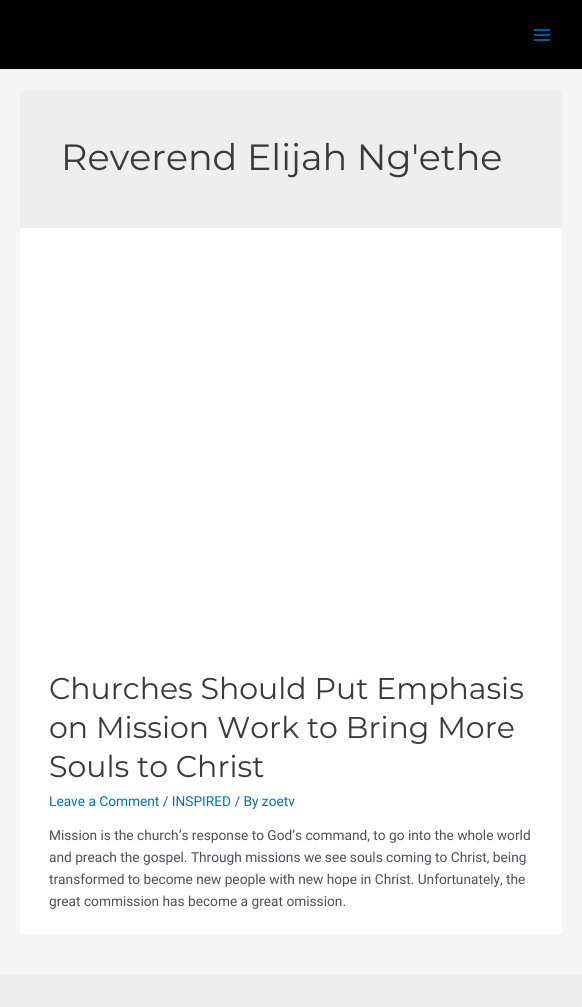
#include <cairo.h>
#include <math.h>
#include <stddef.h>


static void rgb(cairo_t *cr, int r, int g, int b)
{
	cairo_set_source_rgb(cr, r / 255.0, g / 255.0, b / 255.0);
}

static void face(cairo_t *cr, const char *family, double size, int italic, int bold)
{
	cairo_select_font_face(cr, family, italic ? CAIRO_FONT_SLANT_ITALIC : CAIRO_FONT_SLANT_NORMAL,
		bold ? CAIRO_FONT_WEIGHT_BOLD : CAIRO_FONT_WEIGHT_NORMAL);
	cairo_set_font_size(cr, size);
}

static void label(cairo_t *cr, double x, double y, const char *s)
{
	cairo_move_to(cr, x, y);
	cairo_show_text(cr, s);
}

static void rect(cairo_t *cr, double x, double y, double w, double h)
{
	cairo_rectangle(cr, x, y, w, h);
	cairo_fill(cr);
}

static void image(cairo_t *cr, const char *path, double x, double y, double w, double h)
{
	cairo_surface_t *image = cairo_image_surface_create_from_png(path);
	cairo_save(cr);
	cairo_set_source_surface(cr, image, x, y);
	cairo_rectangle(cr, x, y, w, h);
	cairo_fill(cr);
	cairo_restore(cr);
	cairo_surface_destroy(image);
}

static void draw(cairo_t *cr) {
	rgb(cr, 245, 245, 245);
	cairo_paint(cr);
	rgb(cr, 0, 0, 0);
	rect(cr, 0, 0, 582, 69);
	rgb(cr, 234, 234, 234);
	rect(cr, 0, 69, 582, 1);
	image(cr, "image0.png", 533, 29, 18, 12);
	rgb(cr, 238, 238, 238);
	rect(cr, 20, 91, 542, 137);
	face(cr, "Montserrat", 36.5, 0, 0);
	rgb(cr, 58, 58, 58);
	label(cr, 61, 170, "Reverend Elijah Ng'ethe");
	rgb(cr, 255, 255, 255);
	rect(cr, 20, 228, 542, 706);
	face(cr, "Montserrat", 30, 0, 0);
	rgb(cr, 58, 58, 58);
	label(cr, 49, 699, "Churches Should Put Emphasis");
	label(cr, 49, 738, "on Mission Work to Bring More");
	label(cr, 49, 777, "Souls to Christ");
	face(cr, "Roboto", 13.7, 0, 0);
	rgb(cr, 1, 112, 185);
	label(cr, 49, 806, "Leave a Comment / INSPIRED / By zoetv");
	rgb(cr, 75, 79, 88);
	label(cr, 49, 840, "Mission is the church’s response to God’s command, to go into the whole world");
	label(cr, 49, 862, "and preach the gospel. Through missions we see souls coming to Christ, being");
	label(cr, 49, 884, "transformed to become new people with new hope in Christ. Unfortunately, the");
	label(cr, 49, 906, "great commission has become a great omission.");
	rgb(cr, 238, 238, 238);
	rect(cr, 0, 975, 582, 32);
}

int main(void) {
	cairo_surface_t *surface = cairo_image_surface_create(CAIRO_FORMAT_RGB24, 582, 1007);
	cairo_t *cr = cairo_create(surface);
	cairo_font_options_t *options = cairo_font_options_create();
	cairo_font_options_set_hint_metrics(options, CAIRO_HINT_METRICS_OFF);
	cairo_font_options_set_hint_style(options, CAIRO_HINT_STYLE_NONE);
	cairo_set_font_options(cr, options);
	cairo_set_miter_limit(cr, 4);
	draw(cr);
	cairo_surface_write_to_png(surface, "render.png");
	cairo_font_options_destroy(options);
	cairo_destroy(cr);
	cairo_surface_destroy(surface);
	return 0;
}
